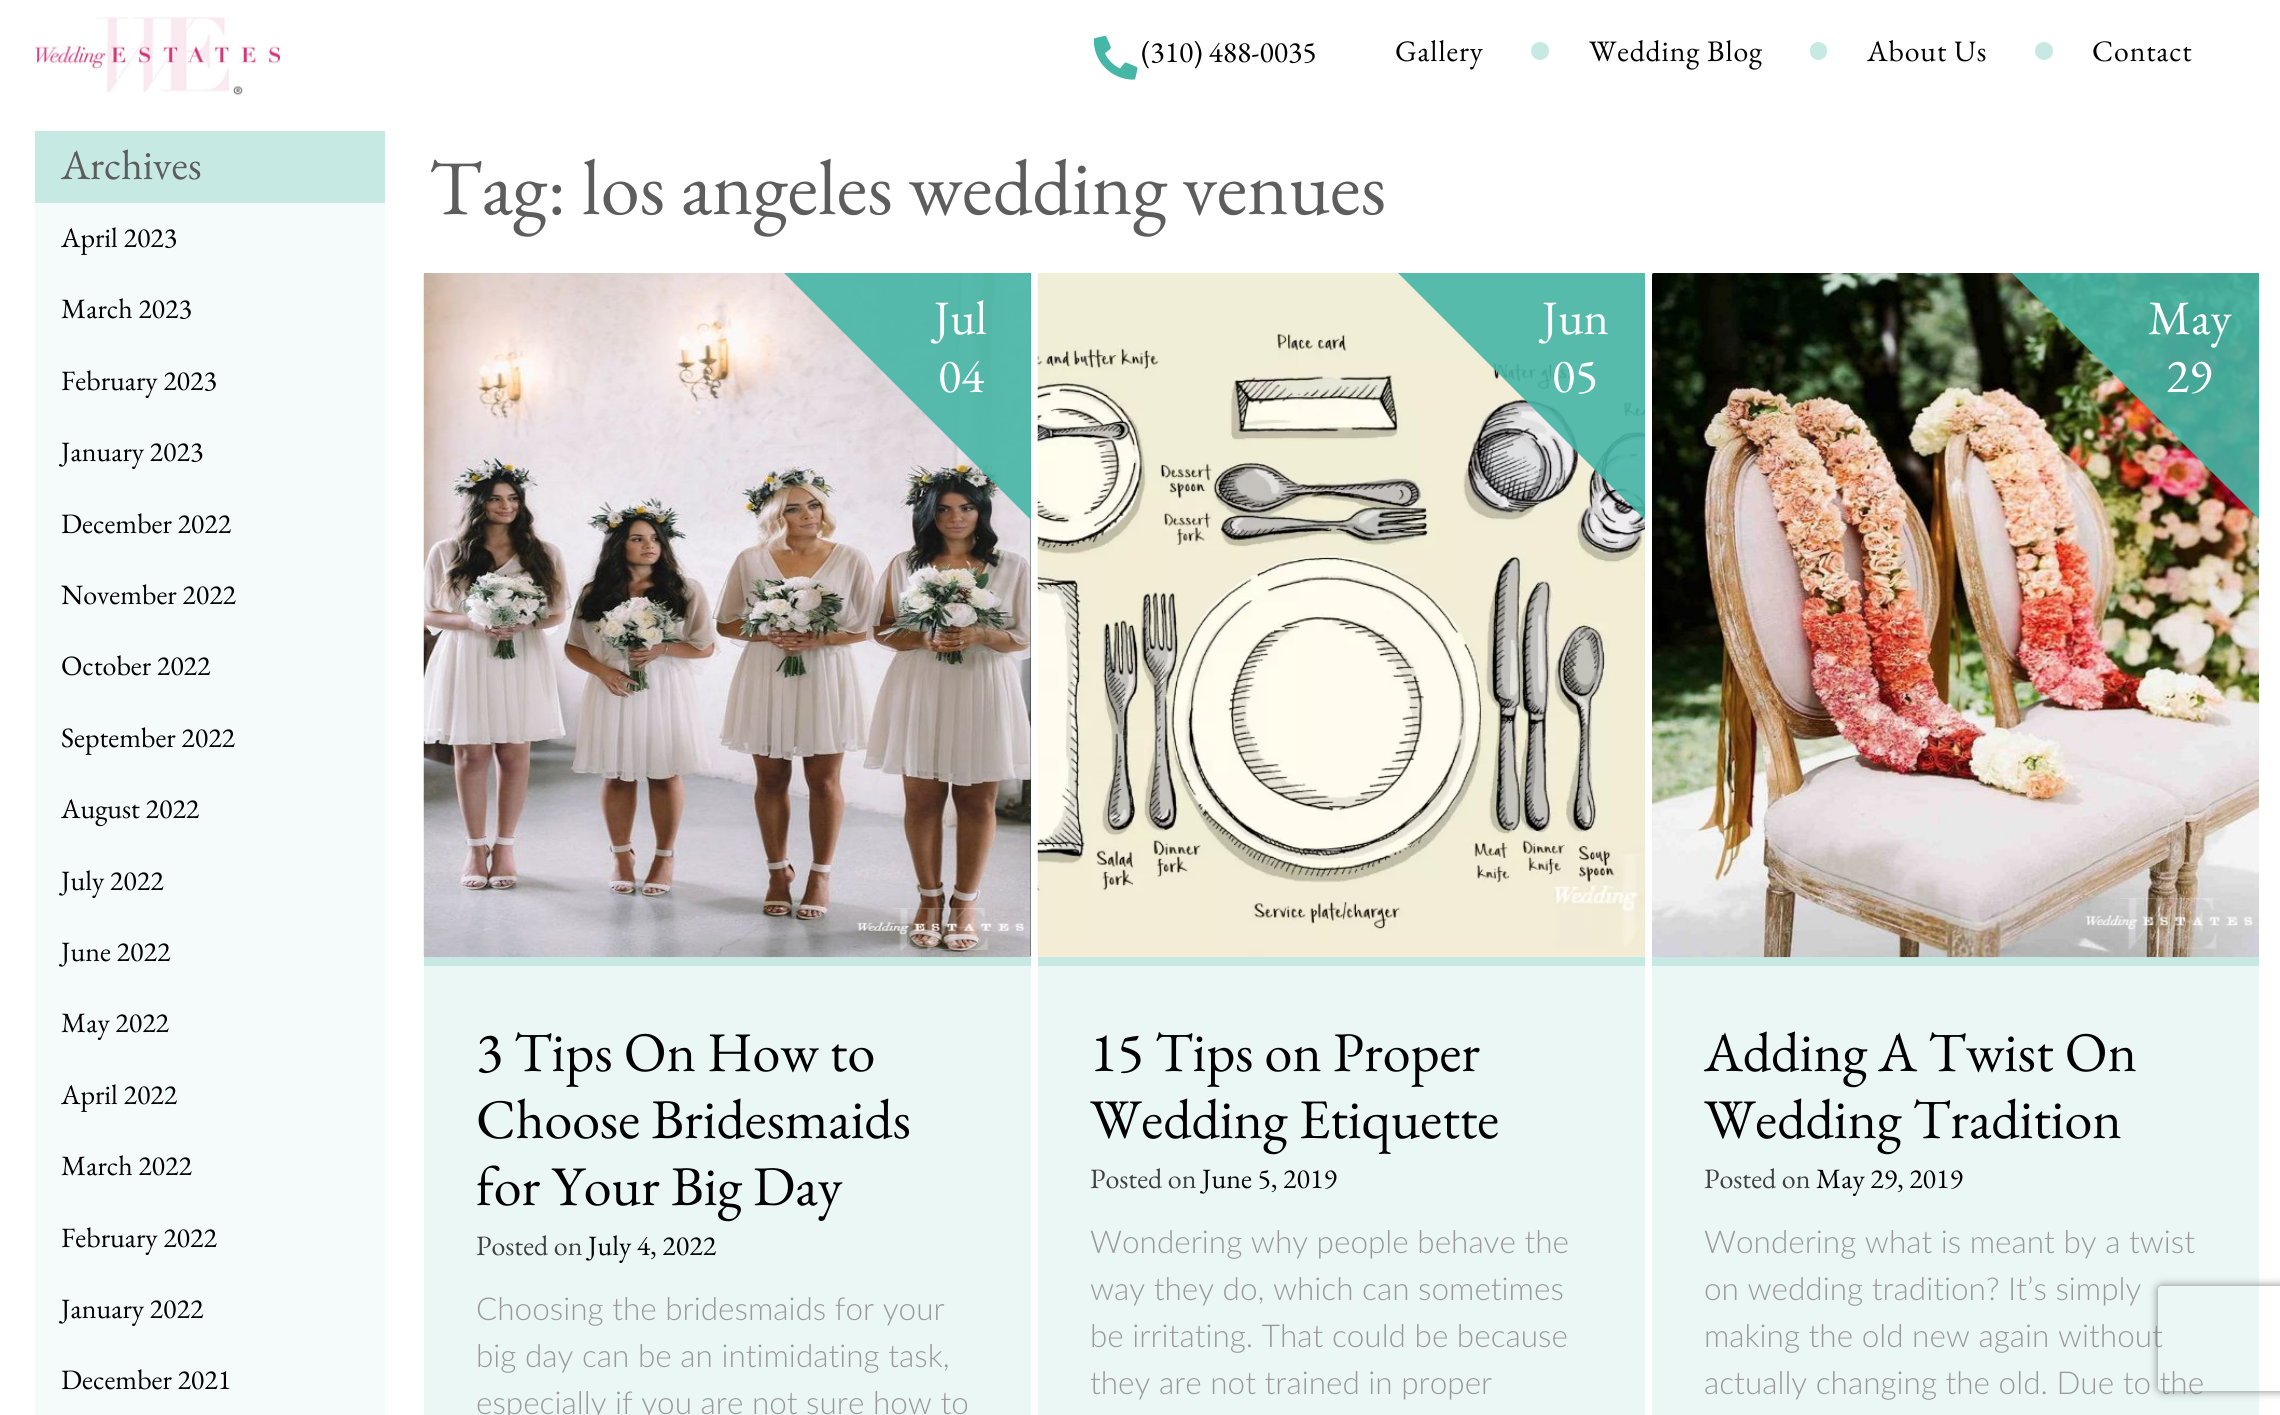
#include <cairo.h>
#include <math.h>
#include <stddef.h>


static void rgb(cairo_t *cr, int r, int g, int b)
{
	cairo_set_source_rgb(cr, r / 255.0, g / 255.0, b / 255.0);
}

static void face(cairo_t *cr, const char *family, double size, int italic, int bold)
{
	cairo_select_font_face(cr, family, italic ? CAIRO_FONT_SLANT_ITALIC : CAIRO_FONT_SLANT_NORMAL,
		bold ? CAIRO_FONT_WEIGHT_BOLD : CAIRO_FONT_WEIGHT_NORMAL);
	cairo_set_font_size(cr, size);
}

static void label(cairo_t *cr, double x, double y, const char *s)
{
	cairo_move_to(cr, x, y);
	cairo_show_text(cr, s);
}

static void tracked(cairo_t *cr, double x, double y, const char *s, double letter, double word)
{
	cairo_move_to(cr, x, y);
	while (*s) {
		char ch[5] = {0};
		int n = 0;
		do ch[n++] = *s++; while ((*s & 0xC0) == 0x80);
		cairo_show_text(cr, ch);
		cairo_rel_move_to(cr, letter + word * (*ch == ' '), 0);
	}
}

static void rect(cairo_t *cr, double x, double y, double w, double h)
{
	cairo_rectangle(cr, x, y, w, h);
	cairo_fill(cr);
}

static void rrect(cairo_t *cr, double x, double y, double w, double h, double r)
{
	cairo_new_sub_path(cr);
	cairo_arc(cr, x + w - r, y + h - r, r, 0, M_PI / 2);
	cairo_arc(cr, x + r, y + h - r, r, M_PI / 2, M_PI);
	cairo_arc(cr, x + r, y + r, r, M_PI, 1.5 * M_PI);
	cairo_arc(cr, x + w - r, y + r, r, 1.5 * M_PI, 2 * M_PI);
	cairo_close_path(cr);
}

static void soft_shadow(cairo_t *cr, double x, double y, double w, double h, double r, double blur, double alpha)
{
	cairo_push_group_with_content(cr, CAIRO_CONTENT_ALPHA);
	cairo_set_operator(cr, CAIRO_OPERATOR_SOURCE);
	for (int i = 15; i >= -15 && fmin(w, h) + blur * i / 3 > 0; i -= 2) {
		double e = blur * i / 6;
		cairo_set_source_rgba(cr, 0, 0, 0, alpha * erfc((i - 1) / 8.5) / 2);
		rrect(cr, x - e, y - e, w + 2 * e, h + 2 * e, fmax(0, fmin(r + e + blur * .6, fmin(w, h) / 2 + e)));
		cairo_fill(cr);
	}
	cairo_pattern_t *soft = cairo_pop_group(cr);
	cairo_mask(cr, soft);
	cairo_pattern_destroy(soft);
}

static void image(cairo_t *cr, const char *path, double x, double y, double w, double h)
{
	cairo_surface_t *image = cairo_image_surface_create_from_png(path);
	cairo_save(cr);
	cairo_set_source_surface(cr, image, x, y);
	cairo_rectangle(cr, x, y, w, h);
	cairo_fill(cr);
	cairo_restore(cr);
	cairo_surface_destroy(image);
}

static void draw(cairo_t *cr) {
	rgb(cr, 255, 255, 255);
	cairo_paint(cr);
	image(cr, "image0.png", 35, 17, 245, 78);
	image(cr, "image1.png", 1094, 35, 44, 45);
	face(cr, "EB Garamond", 29.75, 0, 0);
	rgb(cr, 0, 0, 0);
	label(cr, 1141, 62, "(310) 488-0035");
	tracked(cr, 1395, 61, "Gallery", 0.9, 0);
	rgb(cr, 198, 233, 228);
	cairo_new_path(cr);
	cairo_arc(cr, 1540, 51, 9, 0, 2 * M_PI);
	cairo_fill(cr);
	rgb(cr, 0, 0, 0);
	tracked(cr, 1589, 61, "Wedding Blog", 0.9, 0);
	rgb(cr, 198, 233, 228);
	rrect(cr, 1810, 42, 17, 18, 8.5);
	cairo_fill(cr);
	rgb(cr, 0, 0, 0);
	tracked(cr, 1867, 61, "About Us", 0.9, 0);
	rgb(cr, 198, 233, 228);
	cairo_new_path(cr);
	cairo_arc(cr, 2044, 51, 9, 0, 2 * M_PI);
	cairo_fill(cr);
	rgb(cr, 0, 0, 0);
	tracked(cr, 2092, 61, "Contact", 0.9, 0);
	rgb(cr, 198, 233, 228);
	rect(cr, 35, 131, 350, 72);
	face(cr, "EB Garamond", 42, 0, 0);
	rgb(cr, 94, 93, 93);
	label(cr, 61, 179, "Archives");
	rgb(cr, 245, 251, 251);
	rect(cr, 35, 203, 350, 1212);
	face(cr, "EB Garamond", 28, 0, 0);
	rgb(cr, 0, 0, 0);
	label(cr, 61, 247, "April 2023");
	label(cr, 61, 318, "March 2023");
	label(cr, 61, 390, "February 2023");
	label(cr, 61, 461, "January 2023");
	label(cr, 61, 533, "December 2022");
	label(cr, 61, 604, "November 2022");
	label(cr, 61, 675, "October 2022");
	label(cr, 61, 747, "September 2022");
	label(cr, 61, 818, "August 2022");
	label(cr, 61, 890, "July 2022");
	label(cr, 61, 961, "June 2022");
	label(cr, 61, 1032, "May 2022");
	label(cr, 61, 1104, "April 2022");
	label(cr, 61, 1175, "March 2022");
	label(cr, 61, 1247, "February 2022");
	label(cr, 61, 1318, "January 2022");
	label(cr, 61, 1389, "December 2021");
	face(cr, "EB Garamond", 78.4, 0, 0);
	rgb(cr, 94, 93, 93);
	label(cr, 429, 214, "Tag: los angeles wedding venues");
	rgb(cr, 234, 247, 245);
	rect(cr, 424, 273, 607, 1142);
	rgb(cr, 198, 233, 228);
	rect(cr, 424, 957, 607, 9);
	rgb(cr, 40, 42, 44);
	rrect(cr, 424, 273, 607, 684, 2);
	cairo_fill(cr);
	image(cr, "image2.png", 423, 273, 608, 685);
	cairo_set_source_rgba(cr, 0.275, 0.714, 0.655, 0.9);
	cairo_new_path(cr);
	cairo_move_to(cr, 1031, 520);
	cairo_line_to(cr, 784, 273);
	cairo_line_to(cr, 1031, 273);
	cairo_close_path(cr);
	cairo_fill(cr);
	face(cr, "EB Garamond", 48, 0, 0);
	rgb(cr, 255, 255, 255);
	label(cr, 934, 334, "Jul");
	label(cr, 938, 392, "04");
	face(cr, "EB Garamond", 56, 0, 0);
	rgb(cr, 0, 0, 0);
	label(cr, 476, 1071, "3 Tips On How to");
	label(cr, 476, 1138, "Choose Bridesmaids");
	label(cr, 476, 1205, "for Your Big Day");
	face(cr, "EB Garamond", 28, 0, 0);
	rgb(cr, 64, 64, 64);
	label(cr, 476, 1255, "Posted on");
	rgb(cr, 0, 0, 0);
	label(cr, 588, 1255, "July 4, 2022");
	face(cr, "Lato Light", 31.5, 0, 0);
	rgb(cr, 153, 153, 153);
	label(cr, 476, 1320, "Choosing the bridesmaids for your");
	label(cr, 476, 1367, "big day can be an intimidating task,");
	label(cr, 476, 1414, "especially if you are not sure how to");
	rgb(cr, 234, 247, 245);
	rect(cr, 1038, 273, 607, 1142);
	rgb(cr, 198, 233, 228);
	rect(cr, 1038, 957, 607, 9);
	image(cr, "image3.png", 1037, 273, 608, 684);
	cairo_set_source_rgba(cr, 0.275, 0.714, 0.655, 0.9);
	cairo_new_path(cr);
	cairo_move_to(cr, 1645, 520);
	cairo_line_to(cr, 1398, 273);
	cairo_line_to(cr, 1645, 273);
	cairo_close_path(cr);
	cairo_fill(cr);
	face(cr, "EB Garamond", 48, 0, 0);
	rgb(cr, 255, 255, 255);
	label(cr, 1542, 334, "Jun");
	label(cr, 1552, 392, "05");
	face(cr, "EB Garamond", 56, 0, 0);
	rgb(cr, 0, 0, 0);
	label(cr, 1090, 1071, "15 Tips on Proper");
	label(cr, 1090, 1138, "Wedding Etiquette");
	face(cr, "EB Garamond", 28, 0, 0);
	rgb(cr, 64, 64, 64);
	label(cr, 1090, 1188, "Posted on");
	rgb(cr, 0, 0, 0);
	label(cr, 1202, 1188, "June 5, 2019");
	face(cr, "Lato Light", 31.5, 0, 0);
	rgb(cr, 153, 153, 153);
	label(cr, 1090, 1253, "Wondering why people behave the");
	label(cr, 1090, 1300, "way they do, which can sometimes");
	label(cr, 1090, 1347, "be irritating. That could be because");
	label(cr, 1090, 1394, "they are not trained in proper");
	rgb(cr, 234, 247, 245);
	rect(cr, 1652, 273, 607, 1142);
	rgb(cr, 198, 233, 228);
	rect(cr, 1652, 957, 607, 9);
	image(cr, "image4.png", 1652, 273, 608, 685);
	cairo_save(cr);
	cairo_rectangle(cr, 1652, 273, 607, 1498);
	cairo_clip(cr);
	cairo_set_source_rgba(cr, 0.275, 0.714, 0.655, 0.9);
	cairo_new_path(cr);
	cairo_move_to(cr, 2260, 520);
	cairo_line_to(cr, 2012, 273);
	cairo_line_to(cr, 2260, 273);
	cairo_close_path(cr);
	cairo_fill(cr);
	cairo_restore(cr);
	face(cr, "EB Garamond", 48, 0, 0);
	rgb(cr, 255, 255, 255);
	label(cr, 2148, 334, "May");
	label(cr, 2166, 392, "29");
	face(cr, "EB Garamond", 56, 0, 0);
	rgb(cr, 0, 0, 0);
	label(cr, 1704, 1071, "Adding A Twist On");
	label(cr, 1704, 1138, "Wedding Tradition");
	face(cr, "EB Garamond", 28, 0, 0);
	rgb(cr, 64, 64, 64);
	label(cr, 1704, 1188, "Posted on");
	rgb(cr, 0, 0, 0);
	label(cr, 1816, 1188, "May 29, 2019");
	face(cr, "Lato Light", 31.5, 0, 0);
	rgb(cr, 153, 153, 153);
	label(cr, 1704, 1253, "Wondering what is meant by a twist");
	label(cr, 1704, 1300, "on wedding tradition? It’s simply");
	label(cr, 1704, 1347, "making the old new again without");
	label(cr, 1704, 1394, "actually changing the old. Due to the");
	cairo_save(cr);
	cairo_set_fill_rule(cr, CAIRO_FILL_RULE_EVEN_ODD);
	cairo_new_path(cr);
	cairo_move_to(cr, 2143, 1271);
	cairo_line_to(cr, 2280, 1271);
	cairo_line_to(cr, 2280, 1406);
	cairo_line_to(cr, 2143, 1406);
	cairo_close_path(cr);
	cairo_move_to(cr, 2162, 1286);
	cairo_line_to(cr, 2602, 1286);
	cairo_curve_to(cr, 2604, 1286, 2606, 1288, 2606, 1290);
	cairo_line_to(cr, 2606, 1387);
	cairo_curve_to(cr, 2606, 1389, 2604, 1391, 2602, 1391);
	cairo_line_to(cr, 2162, 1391);
	cairo_curve_to(cr, 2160, 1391, 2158, 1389, 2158, 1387);
	cairo_line_to(cr, 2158, 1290);
	cairo_curve_to(cr, 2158, 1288, 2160, 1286, 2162, 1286);
	cairo_close_path(cr);
	cairo_clip(cr);
	rgb(cr, 128, 128, 128);
	soft_shadow(cr, 2158, 1286, 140, 105, 4, 4.5, 1);
	cairo_restore(cr);
}

int main(void) {
	cairo_surface_t *surface = cairo_image_surface_create(CAIRO_FORMAT_RGB24, 2280, 1415);
	cairo_t *cr = cairo_create(surface);
	cairo_font_options_t *options = cairo_font_options_create();
	cairo_font_options_set_hint_metrics(options, CAIRO_HINT_METRICS_OFF);
	cairo_font_options_set_hint_style(options, CAIRO_HINT_STYLE_NONE);
	cairo_set_font_options(cr, options);
	cairo_set_miter_limit(cr, 4);
	draw(cr);
	cairo_surface_write_to_png(surface, "render.png");
	cairo_font_options_destroy(options);
	cairo_destroy(cr);
	cairo_surface_destroy(surface);
	return 0;
}
